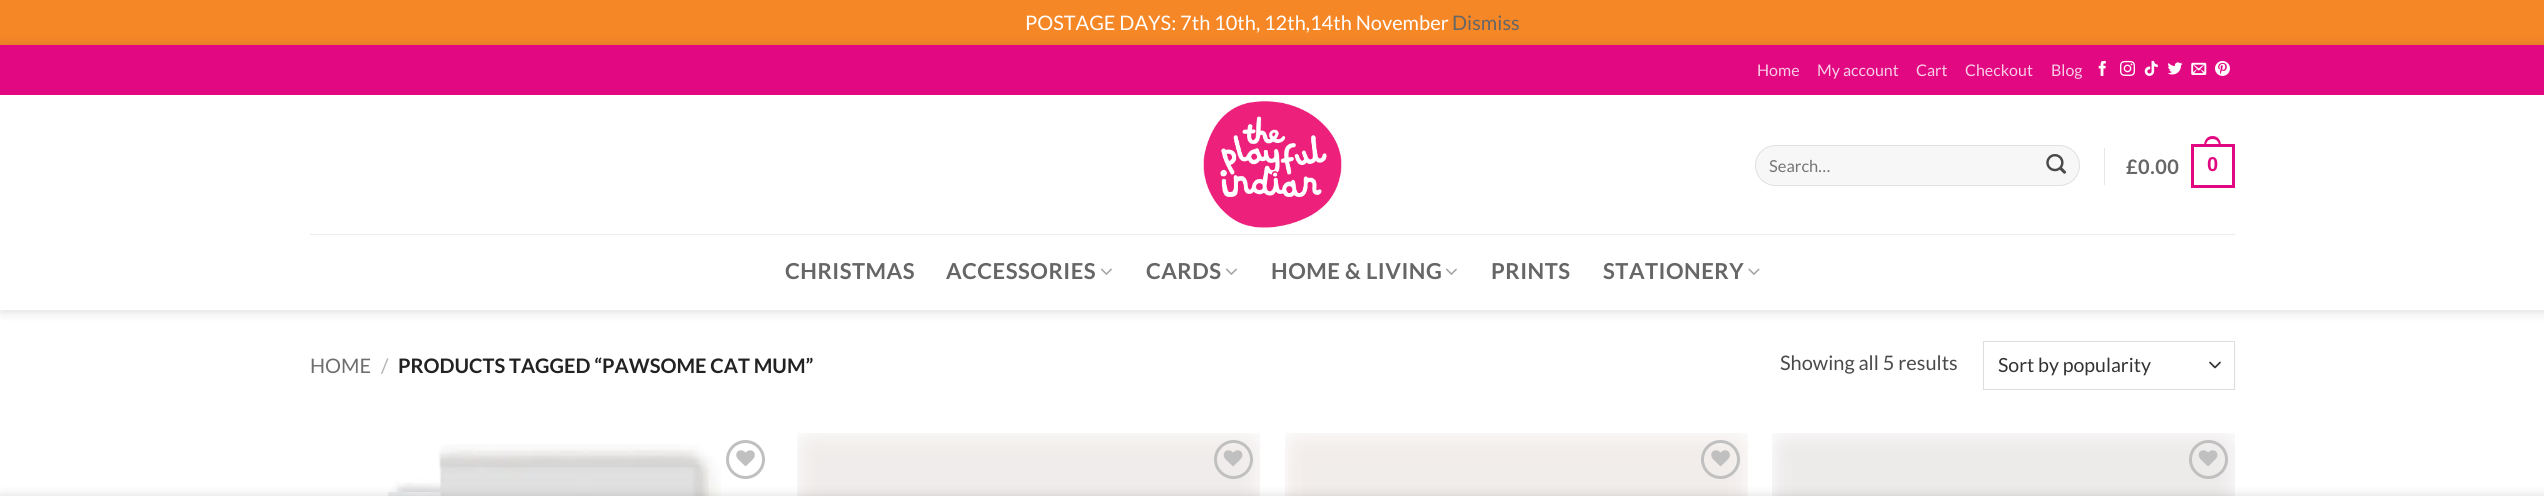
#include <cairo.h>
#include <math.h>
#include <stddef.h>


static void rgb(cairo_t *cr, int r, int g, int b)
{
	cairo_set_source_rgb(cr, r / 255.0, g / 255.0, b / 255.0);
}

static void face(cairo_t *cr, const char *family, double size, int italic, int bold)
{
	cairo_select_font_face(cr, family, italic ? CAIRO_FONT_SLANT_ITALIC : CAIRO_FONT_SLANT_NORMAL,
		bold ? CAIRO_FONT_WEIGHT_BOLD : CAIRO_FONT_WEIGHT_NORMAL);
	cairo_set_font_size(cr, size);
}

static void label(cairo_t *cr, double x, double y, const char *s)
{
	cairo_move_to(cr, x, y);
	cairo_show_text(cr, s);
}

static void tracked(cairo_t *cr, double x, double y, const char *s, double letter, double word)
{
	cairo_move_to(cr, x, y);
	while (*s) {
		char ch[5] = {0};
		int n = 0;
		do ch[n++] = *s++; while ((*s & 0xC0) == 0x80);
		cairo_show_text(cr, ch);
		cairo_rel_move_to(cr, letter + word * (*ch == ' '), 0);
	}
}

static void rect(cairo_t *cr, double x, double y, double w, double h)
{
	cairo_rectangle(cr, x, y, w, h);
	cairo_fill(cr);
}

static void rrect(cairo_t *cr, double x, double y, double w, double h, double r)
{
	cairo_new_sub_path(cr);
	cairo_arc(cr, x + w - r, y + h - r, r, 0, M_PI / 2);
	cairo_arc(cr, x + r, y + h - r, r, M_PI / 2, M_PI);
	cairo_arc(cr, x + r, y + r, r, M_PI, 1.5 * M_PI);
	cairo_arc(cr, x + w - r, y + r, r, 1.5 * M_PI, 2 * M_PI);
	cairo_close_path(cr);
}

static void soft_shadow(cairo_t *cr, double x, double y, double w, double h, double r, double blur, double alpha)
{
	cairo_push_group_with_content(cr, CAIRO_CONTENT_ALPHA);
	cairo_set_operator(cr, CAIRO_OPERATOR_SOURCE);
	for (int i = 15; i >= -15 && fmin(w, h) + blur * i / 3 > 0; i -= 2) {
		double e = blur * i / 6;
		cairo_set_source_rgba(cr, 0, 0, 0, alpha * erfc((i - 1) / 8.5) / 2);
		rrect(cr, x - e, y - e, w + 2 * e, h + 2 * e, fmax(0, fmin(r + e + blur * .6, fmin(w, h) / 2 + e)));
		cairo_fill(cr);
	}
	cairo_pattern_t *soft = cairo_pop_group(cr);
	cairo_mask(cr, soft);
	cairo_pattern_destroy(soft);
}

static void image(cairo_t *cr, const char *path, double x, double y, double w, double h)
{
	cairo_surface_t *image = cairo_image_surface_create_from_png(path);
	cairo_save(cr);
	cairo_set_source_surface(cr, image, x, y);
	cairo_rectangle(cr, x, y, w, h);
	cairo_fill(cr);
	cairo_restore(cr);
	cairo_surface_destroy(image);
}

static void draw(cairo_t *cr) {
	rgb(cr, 255, 255, 255);
	cairo_paint(cr);
	rgb(cr, 246, 135, 39);
	rect(cr, 0, 0, 2544, 45);
	face(cr, "Lato", 20, 0, 0);
	rgb(cr, 255, 255, 255);
	label(cr, 1025, 30, "POSTAGE DAYS: 7th 10th, 12th,14th November");
	rgb(cr, 102, 102, 102);
	label(cr, 1452, 30, "Dismiss");
	cairo_save(cr);
	cairo_set_fill_rule(cr, CAIRO_FILL_RULE_EVEN_ODD);
	cairo_new_path(cr);
	cairo_move_to(cr, 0, 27);
	cairo_line_to(cr, 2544, 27);
	cairo_line_to(cr, 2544, 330);
	cairo_line_to(cr, 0, 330);
	cairo_close_path(cr);
	cairo_move_to(cr, 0, 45);
	cairo_line_to(cr, 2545, 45);
	cairo_line_to(cr, 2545, 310);
	cairo_line_to(cr, 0, 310);
	cairo_close_path(cr);
	cairo_clip(cr);
	rgb(cr, 0, 0, 0);
	soft_shadow(cr, 1, 46, 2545, 265, 0, 6, 0.15);
	cairo_restore(cr);
	rgb(cr, 225, 8, 130);
	rect(cr, 0, 45, 2544, 50);
	face(cr, "Lato", 16, 0, 0);
	rgb(cr, 249, 206, 230);
	label(cr, 1757, 76, "Home");
	label(cr, 1817, 76, "My account");
	label(cr, 1916, 76, "Cart");
	label(cr, 1965, 76, "Checkout");
	label(cr, 2051, 76, "Blog");
	image(cr, "image0.png", 2098, 60, 8, 16);
	image(cr, "image1.png", 2120, 60, 15, 16);
	image(cr, "image2.png", 2144, 60, 14, 16);
	image(cr, "image3.png", 2167, 62, 16, 13);
	image(cr, "image4.png", 2191, 62, 16, 13);
	image(cr, "image5.png", 2215, 60, 15, 16);
	image(cr, "image6.png", 1203, 101, 139, 127);
	rgb(cr, 247, 247, 247);
	rrect(cr, 1755, 145, 325, 41, 20.5);
	cairo_fill(cr);
	rrect(cr, 1755.5, 145.5, 324, 40, 20);
	cairo_set_source_rgba(cr, 0, 0, 0, 0.09);
	cairo_set_line_width(cr, 1);
	cairo_stroke(cr);
	face(cr, "Lato", 16.5, 0, 0);
	rgb(cr, 117, 117, 117);
	label(cr, 1769, 172, "Search…");
	image(cr, "image7.png", 2046, 154, 20, 20);
	rgb(cr, 230, 230, 230);
	rect(cr, 2104, 148, 1, 37);
	face(cr, "Lato", 20, 0, 1);
	rgb(cr, 102, 102, 102);
	tracked(cr, 2126, 174, "£0.00", 0.5, 0);
	cairo_rectangle(cr, 2192.5, 145.5, 41, 41);
	rgb(cr, 225, 8, 130);
	cairo_set_line_width(cr, 3);
	cairo_stroke(cr);
	cairo_set_fill_rule(cr, CAIRO_FILL_RULE_EVEN_ODD);
	cairo_new_path(cr);
	cairo_move_to(cr, 2212.5, 136);
	cairo_curve_to(cr, 2218.5, 136, 2221, 141, 2221, 146);
	cairo_line_to(cr, 2204, 146);
	cairo_curve_to(cr, 2204, 141, 2206.5, 136, 2212.5, 136);
	cairo_close_path(cr);
	cairo_move_to(cr, 2212.5, 139);
	cairo_curve_to(cr, 2217, 139, 2219, 142.5, 2219, 146);
	cairo_line_to(cr, 2206, 146);
	cairo_curve_to(cr, 2206, 142.5, 2208, 139, 2212.5, 139);
	cairo_close_path(cr);
	cairo_fill(cr);
	face(cr, "Liberation Sans", 20, 0, 1);
	tracked(cr, 2207, 171, "0", 0.5, 0);
	rgb(cr, 237, 237, 237);
	rect(cr, 310, 234, 1925, 1);
	face(cr, "Lato", 22, 0, 1);
	rgb(cr, 102, 102, 102);
	tracked(cr, 785, 279, "CHRISTMAS", 0.5, 0);
	tracked(cr, 946, 279, "ACCESSORIES", 0.5, 0);
	image(cr, "image8.png", 1100, 268, 12, 7);
	tracked(cr, 1146, 279, "CARDS", 0.5, 0);
	image(cr, "image8.png", 1225, 268, 12, 7);
	tracked(cr, 1271, 279, "HOME & LIVING", 0.5, 0);
	image(cr, "image8.png", 1445, 268, 12, 7);
	tracked(cr, 1491, 279, "PRINTS", 0.5, 0);
	tracked(cr, 1603, 279, "STATIONERY", 0.5, 0);
	image(cr, "image9.png", 1748, 268, 12, 7);
	face(cr, "Lato", 20, 0, 0);
	rgb(cr, 110, 110, 110);
	label(cr, 310, 373, "HOME");
	rgb(cr, 178, 178, 178);
	label(cr, 381, 373, "/");
	face(cr, "Lato", 20, 0, 1);
	rgb(cr, 34, 34, 34);
	label(cr, 398, 373, "PRODUCTS TAGGED “PAWSOME CAT MUM”");
	face(cr, "Lato", 20, 0, 0);
	rgb(cr, 74, 74, 74);
	label(cr, 1780, 370, "Showing all 5 results");
	cairo_new_path(cr);
	cairo_move_to(cr, 2210, 362.5);
	cairo_line_to(cr, 2215, 367.5);
	cairo_line_to(cr, 2220, 362.5);
	rgb(cr, 51, 51, 51);
	cairo_set_line_width(cr, 1.7);
	cairo_set_line_cap(cr, CAIRO_LINE_CAP_ROUND);
	cairo_set_line_join(cr, CAIRO_LINE_JOIN_ROUND);
	cairo_stroke(cr);
	cairo_rectangle(cr, 1983.5, 341.5, 251, 48);
	rgb(cr, 221, 221, 221);
	cairo_set_line_width(cr, 1);
	cairo_set_line_cap(cr, CAIRO_LINE_CAP_BUTT);
	cairo_set_line_join(cr, CAIRO_LINE_JOIN_MITER);
	cairo_stroke(cr);
	face(cr, "Lato", 19.5, 0, 0);
	rgb(cr, 51, 51, 51);
	label(cr, 1998, 372, "Sort by popularity");
	image(cr, "image10.png", 387, 444, 334, 52);
	cairo_arc(cr, 745.5, 459.5, 18, 0, 2 * M_PI);
	rgb(cr, 192, 192, 192);
	cairo_set_line_width(cr, 3);
	cairo_stroke(cr);
	image(cr, "image11.png", 736, 450, 19, 17);
	image(cr, "image12.png", 797, 433, 463, 63);
	cairo_arc(cr, 1233.5, 459.5, 18, 0, 2 * M_PI);
	cairo_stroke(cr);
	image(cr, "image13.png", 1223, 450, 20, 17);
	image(cr, "image14.png", 1285, 433, 463, 63);
	cairo_arc(cr, 1720.5, 459.5, 18, 0, 2 * M_PI);
	cairo_stroke(cr);
	image(cr, "image15.png", 1711, 450, 19, 17);
	image(cr, "image16.png", 1772, 433, 463, 63);
	cairo_arc(cr, 2208.5, 459.5, 18, 0, 2 * M_PI);
	cairo_stroke(cr);
	image(cr, "image17.png", 2198, 450, 20, 17);
	rgb(cr, 0, 0, 0);
	soft_shadow(cr, 0, 496, 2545, 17, 0, 5.5, 0.14);
}

int main(void) {
	cairo_surface_t *surface = cairo_image_surface_create(CAIRO_FORMAT_RGB24, 2544, 496);
	cairo_t *cr = cairo_create(surface);
	cairo_font_options_t *options = cairo_font_options_create();
	cairo_font_options_set_hint_metrics(options, CAIRO_HINT_METRICS_OFF);
	cairo_font_options_set_hint_style(options, CAIRO_HINT_STYLE_NONE);
	cairo_set_font_options(cr, options);
	cairo_set_miter_limit(cr, 4);
	draw(cr);
	cairo_surface_write_to_png(surface, "render.png");
	cairo_font_options_destroy(options);
	cairo_destroy(cr);
	cairo_surface_destroy(surface);
	return 0;
}
